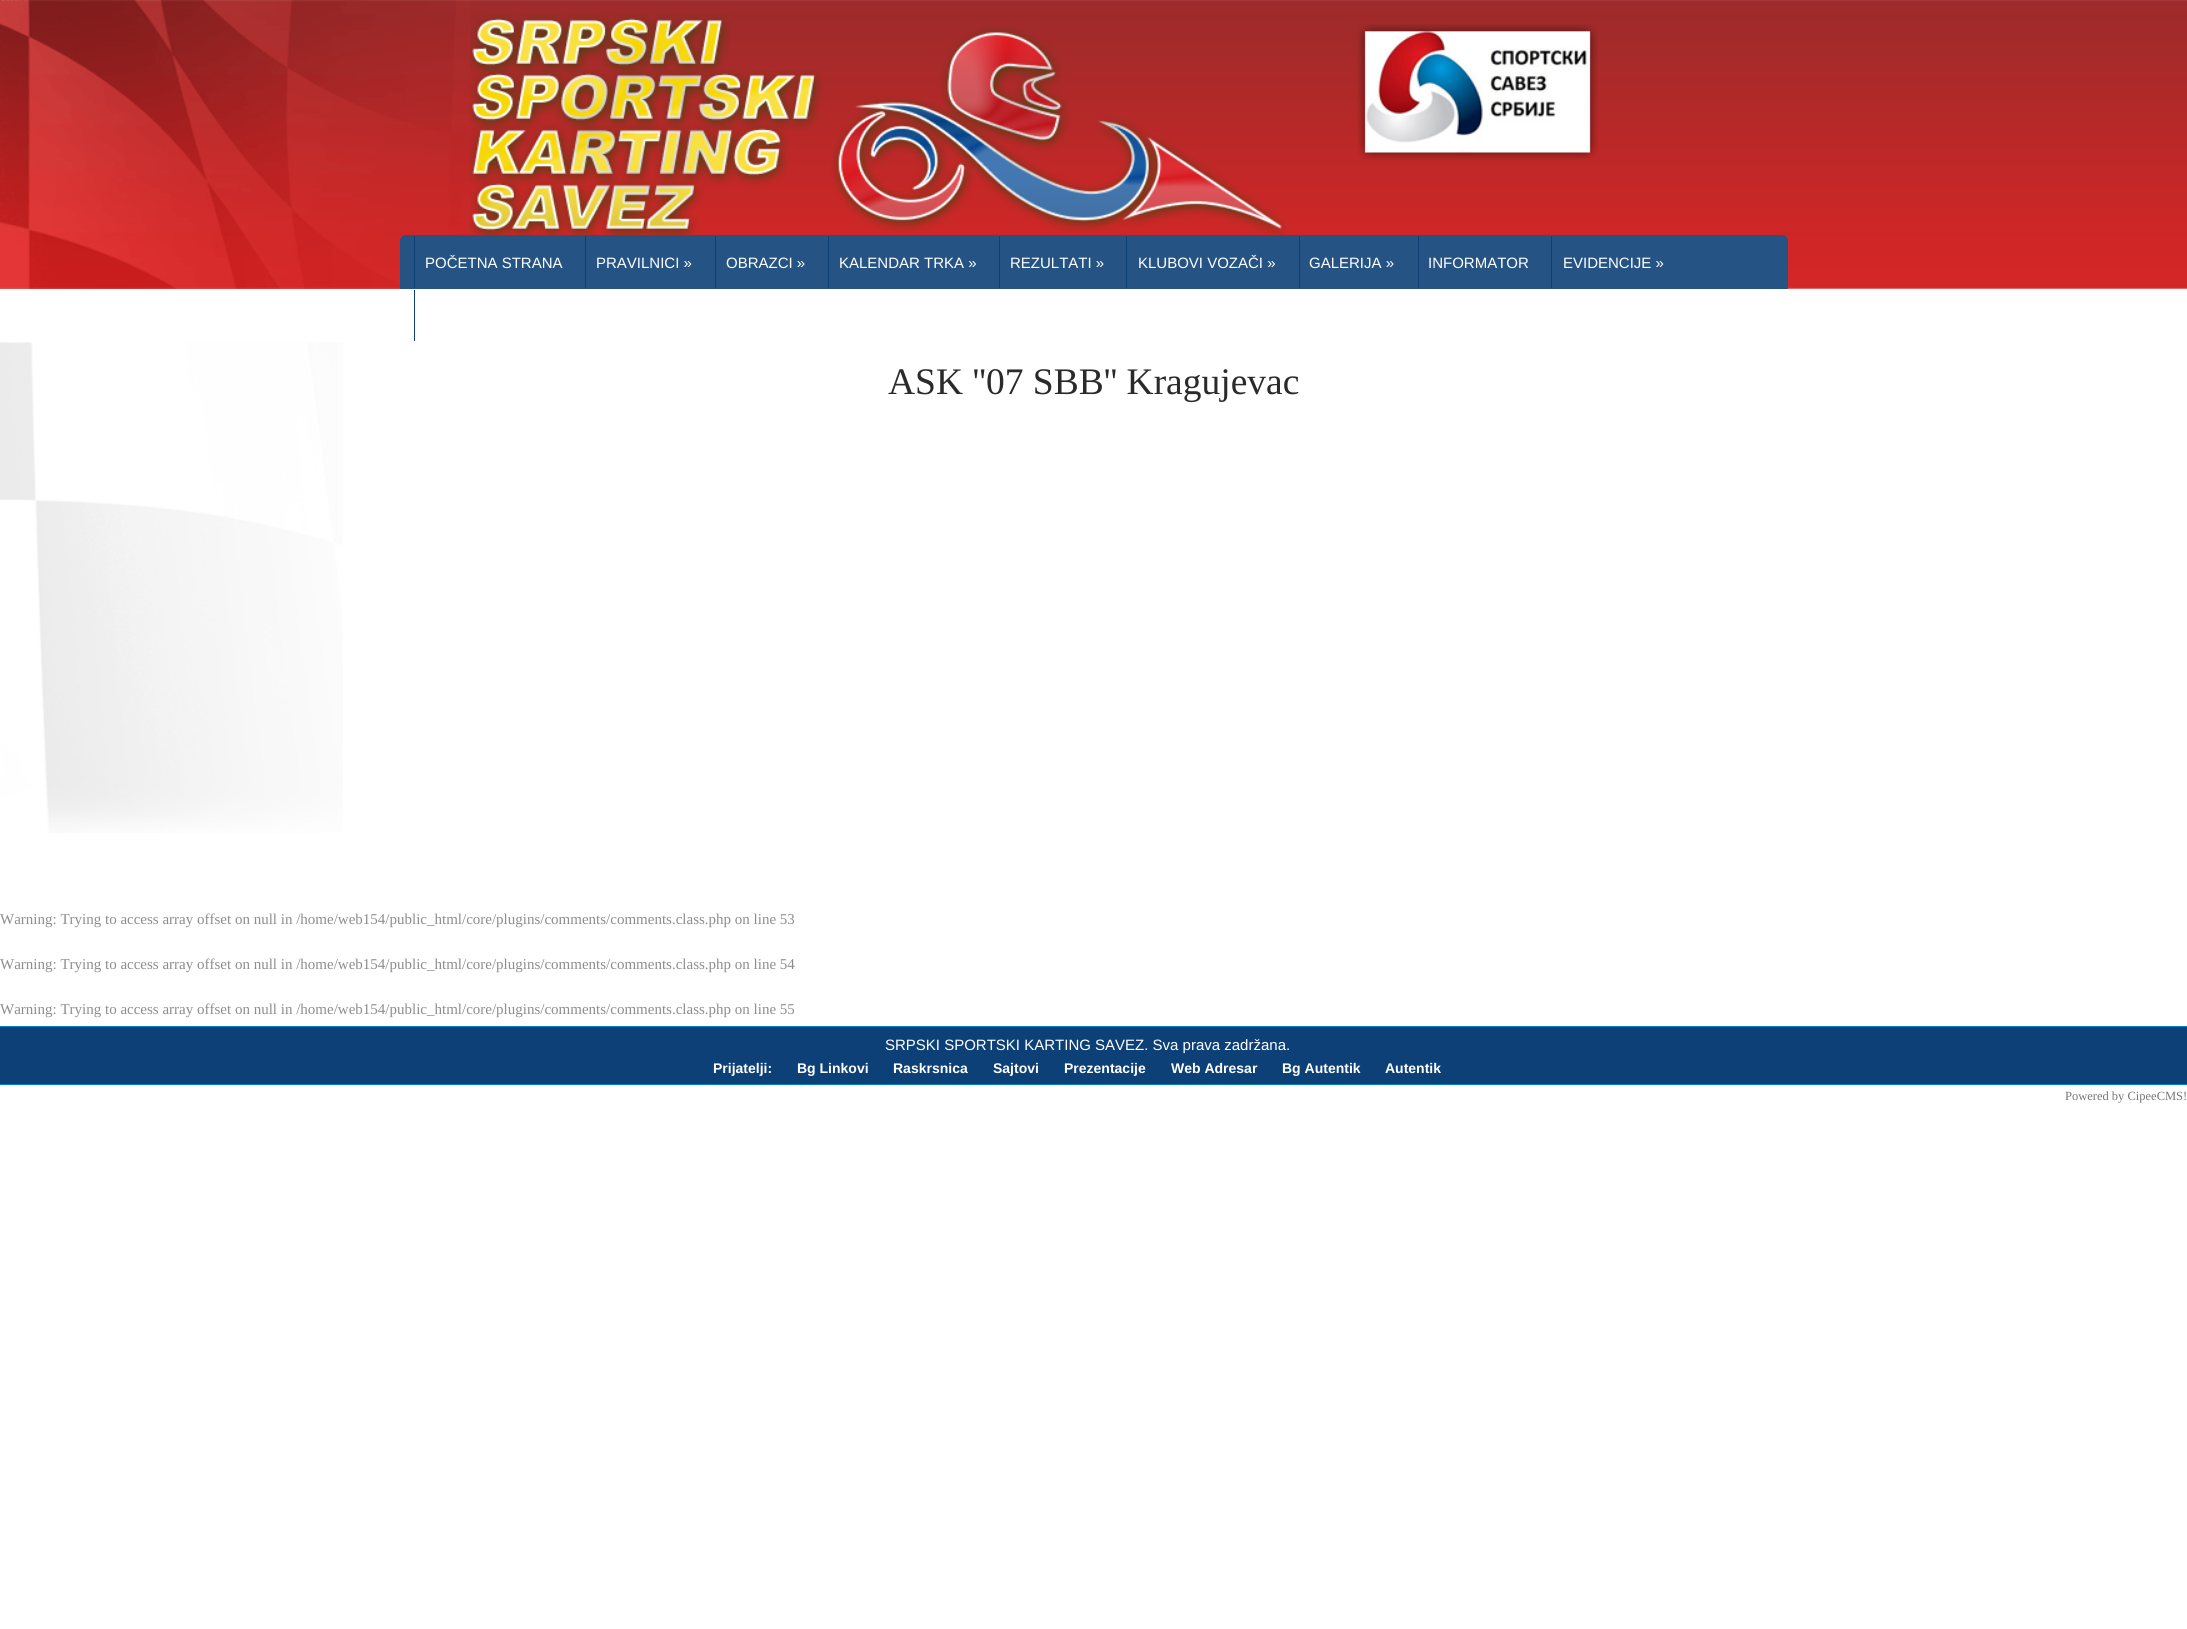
#include <cairo.h>
#include <math.h>
#include <stddef.h>


static void rgb(cairo_t *cr, int r, int g, int b)
{
	cairo_set_source_rgb(cr, r / 255.0, g / 255.0, b / 255.0);
}

static void face(cairo_t *cr, const char *family, double size, int italic, int bold)
{
	cairo_select_font_face(cr, family, italic ? CAIRO_FONT_SLANT_ITALIC : CAIRO_FONT_SLANT_NORMAL,
		bold ? CAIRO_FONT_WEIGHT_BOLD : CAIRO_FONT_WEIGHT_NORMAL);
	cairo_set_font_size(cr, size);
}

static void label(cairo_t *cr, double x, double y, const char *s)
{
	cairo_move_to(cr, x, y);
	cairo_show_text(cr, s);
}

static void rect(cairo_t *cr, double x, double y, double w, double h)
{
	cairo_rectangle(cr, x, y, w, h);
	cairo_fill(cr);
}

static void image(cairo_t *cr, const char *path, double x, double y, double w, double h)
{
	cairo_surface_t *image = cairo_image_surface_create_from_png(path);
	cairo_save(cr);
	cairo_set_source_surface(cr, image, x, y);
	cairo_rectangle(cr, x, y, w, h);
	cairo_fill(cr);
	cairo_restore(cr);
	cairo_surface_destroy(image);
}

static void draw(cairo_t *cr) {
	rgb(cr, 255, 255, 255);
	cairo_paint(cr);
	image(cr, "image0.png", 0, 0, 2187, 289);
	image(cr, "image1.png", 0, 0, 472, 289);
	image(cr, "image2.png", 469, 13, 354, 222);
	image(cr, "image3.png", 831, 26, 455, 209);
	image(cr, "image4.png", 1357, 24, 241, 136);
	rgb(cr, 37, 83, 132);
	cairo_new_path(cr);
	cairo_move_to(cr, 406, 235);
	cairo_line_to(cr, 1782, 235);
	cairo_curve_to(cr, 1785.5, 235, 1788, 237.5, 1788, 241);
	cairo_line_to(cr, 1788, 289);
	cairo_line_to(cr, 400, 289);
	cairo_line_to(cr, 400, 241);
	cairo_curve_to(cr, 400, 237.5, 402.5, 235, 406, 235);
	cairo_close_path(cr);
	cairo_fill(cr);
	rgb(cr, 12, 64, 118);
	rect(cr, 414, 236, 1, 52);
	face(cr, "Liberation Sans", 15, 0, 0);
	rgb(cr, 255, 255, 255);
	label(cr, 425, 268, "POČETNA STRANA");
	rgb(cr, 12, 64, 118);
	rect(cr, 585, 236, 1, 52);
	rgb(cr, 255, 255, 255);
	label(cr, 596, 268, "PRAVILNICI »");
	rgb(cr, 12, 64, 118);
	rect(cr, 715, 236, 1, 52);
	rgb(cr, 255, 255, 255);
	label(cr, 726, 268, "OBRAZCI »");
	rgb(cr, 12, 64, 118);
	rect(cr, 828, 236, 1, 52);
	rgb(cr, 255, 255, 255);
	label(cr, 839, 268, "KALENDAR TRKA »");
	rgb(cr, 12, 64, 118);
	rect(cr, 999, 236, 1, 52);
	rgb(cr, 255, 255, 255);
	label(cr, 1010, 268, "REZULTATI »");
	rgb(cr, 12, 64, 118);
	rect(cr, 1126, 236, 1, 52);
	rgb(cr, 255, 255, 255);
	label(cr, 1138, 268, "KLUBOVI VOZAČI »");
	rgb(cr, 12, 64, 118);
	rect(cr, 1299, 236, 1, 52);
	rgb(cr, 255, 255, 255);
	label(cr, 1309, 268, "GALERIJA »");
	rgb(cr, 12, 64, 118);
	rect(cr, 1418, 236, 1, 52);
	rgb(cr, 255, 255, 255);
	label(cr, 1428, 268, "INFORMATOR");
	rgb(cr, 12, 64, 118);
	rect(cr, 1551, 236, 1, 52);
	rgb(cr, 255, 255, 255);
	label(cr, 1563, 268, "EVIDENCIJE »");
	rgb(cr, 12, 64, 118);
	rect(cr, 414, 290, 1, 51);
	image(cr, "image5.png", 0, 342, 343, 491);
	face(cr, "Liberation Serif", 37.5, 0, 0);
	rgb(cr, 42, 42, 42);
	label(cr, 888, 394, "ASK ''07 SBB'' Kragujevac");
	face(cr, "Liberation Serif", 15, 0, 0);
	rgb(cr, 141, 141, 141);
	label(cr, 0, 924, "Warning: Trying to access array offset on null in /home/web154/public_html/core/plugins/comments/comments.class.php on line 53");
	label(cr, 0, 969, "Warning: Trying to access array offset on null in /home/web154/public_html/core/plugins/comments/comments.class.php on line 54");
	label(cr, 0, 1014, "Warning: Trying to access array offset on null in /home/web154/public_html/core/plugins/comments/comments.class.php on line 55");
	rgb(cr, 12, 64, 118);
	rect(cr, 0, 1027, 2187, 57);
	rgb(cr, 2, 128, 191);
	rect(cr, 0, 1026, 2187, 1);
	rect(cr, 0, 1084, 2187, 1);
	face(cr, "Liberation Sans", 15, 0, 0);
	rgb(cr, 255, 255, 255);
	label(cr, 885, 1050, "SRPSKI SPORTSKI KARTING SAVEZ. Sva prava zadržana.");
	face(cr, "Liberation Sans", 14, 0, 1);
	label(cr, 713, 1073, "Prijatelji:");
	label(cr, 797, 1073, "Bg Linkovi");
	label(cr, 893, 1073, "Raskrsnica");
	label(cr, 993, 1073, "Sajtovi");
	label(cr, 1064, 1073, "Prezentacije");
	label(cr, 1171, 1073, "Web Adresar");
	label(cr, 1282, 1073, "Bg Autentik");
	label(cr, 1385, 1073, "Autentik");
	face(cr, "Liberation Serif", 12.5, 0, 0);
	rgb(cr, 119, 119, 119);
	label(cr, 2065, 1100, "Powered by CipeeCMS!");
}

int main(void) {
	cairo_surface_t *surface = cairo_image_surface_create(CAIRO_FORMAT_RGB24, 2187, 1629);
	cairo_t *cr = cairo_create(surface);
	cairo_font_options_t *options = cairo_font_options_create();
	cairo_font_options_set_hint_metrics(options, CAIRO_HINT_METRICS_OFF);
	cairo_font_options_set_hint_style(options, CAIRO_HINT_STYLE_NONE);
	cairo_set_font_options(cr, options);
	cairo_set_miter_limit(cr, 4);
	draw(cr);
	cairo_surface_write_to_png(surface, "render.png");
	cairo_font_options_destroy(options);
	cairo_destroy(cr);
	cairo_surface_destroy(surface);
	return 0;
}
